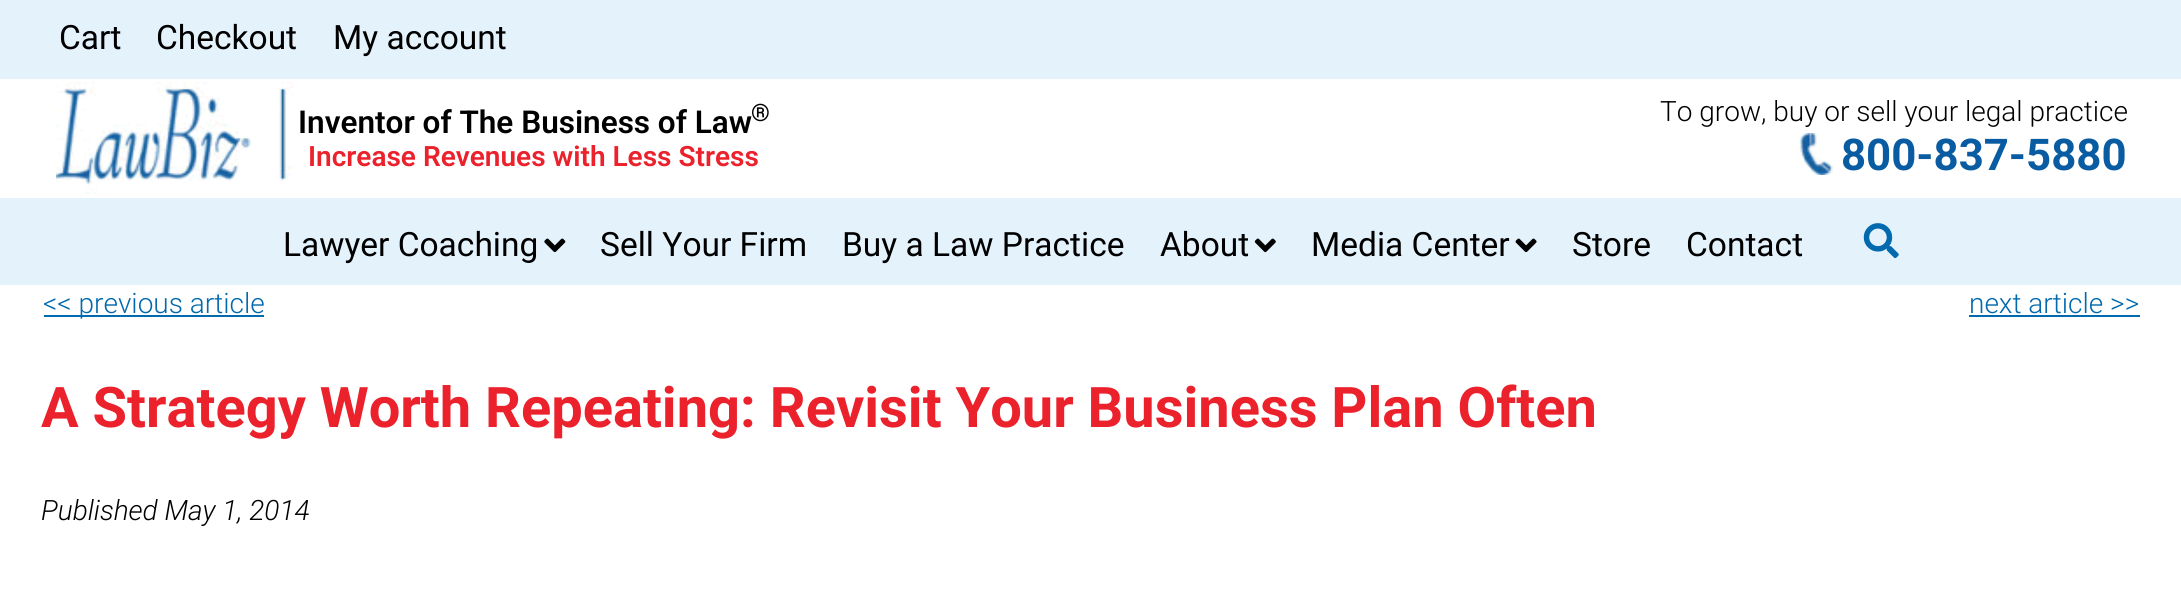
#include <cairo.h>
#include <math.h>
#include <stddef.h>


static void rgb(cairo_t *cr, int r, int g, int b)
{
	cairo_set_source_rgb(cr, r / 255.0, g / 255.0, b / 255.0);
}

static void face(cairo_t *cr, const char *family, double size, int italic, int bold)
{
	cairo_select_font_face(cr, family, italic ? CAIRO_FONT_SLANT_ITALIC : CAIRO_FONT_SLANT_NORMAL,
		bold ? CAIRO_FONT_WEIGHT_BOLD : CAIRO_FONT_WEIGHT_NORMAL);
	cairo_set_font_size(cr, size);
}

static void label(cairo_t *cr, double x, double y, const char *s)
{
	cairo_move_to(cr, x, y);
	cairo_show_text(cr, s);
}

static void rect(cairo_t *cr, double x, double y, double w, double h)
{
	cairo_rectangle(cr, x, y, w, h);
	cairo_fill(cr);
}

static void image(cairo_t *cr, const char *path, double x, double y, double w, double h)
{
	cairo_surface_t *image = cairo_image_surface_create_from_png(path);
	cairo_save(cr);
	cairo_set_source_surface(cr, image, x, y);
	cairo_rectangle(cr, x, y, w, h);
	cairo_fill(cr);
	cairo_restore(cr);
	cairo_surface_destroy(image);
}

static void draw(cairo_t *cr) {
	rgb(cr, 255, 255, 255);
	cairo_paint(cr);
	rgb(cr, 228, 242, 252);
	rect(cr, 0, 0, 2181, 79);
	face(cr, "Roboto", 33.5, 0, 0);
	rgb(cr, 0, 0, 0);
	label(cr, 59, 49, "Cart");
	label(cr, 156, 49, "Checkout");
	label(cr, 333, 49, "My account");
	image(cr, "image0.png", 56, 82, 238, 112);
	face(cr, "Roboto SemiBold", 31.5, 0, 0);
	label(cr, 298, 133, "Inventor of The Business of Law");
	face(cr, "Roboto SemiBold", 24, 0, 0);
	label(cr, 751, 121, "®");
	face(cr, "Roboto SemiBold", 28, 0, 0);
	rgb(cr, 235, 33, 44);
	label(cr, 308, 166, "Increase Revenues with Less Stress");
	face(cr, "Roboto Light", 28, 0, 0);
	rgb(cr, 0, 0, 0);
	label(cr, 1660, 121, "To grow, buy or sell your legal practice");
	image(cr, "image1.png", 1797, 133, 37, 42);
	face(cr, "Roboto", 43.75, 0, 1);
	rgb(cr, 9, 92, 162);
	label(cr, 1841, 170, "800-837-5880");
	rgb(cr, 228, 242, 252);
	rect(cr, 0, 198, 2181, 87);
	face(cr, "Roboto", 33.5, 0, 0);
	rgb(cr, 0, 0, 0);
	label(cr, 283, 256, "Lawyer Coaching");
	image(cr, "image2.png", 544, 238, 22, 15);
	label(cr, 600, 256, "Sell Your Firm");
	label(cr, 842, 256, "Buy a Law Practice");
	label(cr, 1160, 256, "About");
	image(cr, "image3.png", 1254, 238, 22, 15);
	label(cr, 1311, 256, "Media Center");
	image(cr, "image4.png", 1515, 238, 22, 15);
	label(cr, 1572, 256, "Store");
	label(cr, 1686, 256, "Contact");
	image(cr, "image5.png", 1863, 223, 36, 36);
	rgb(cr, 1, 105, 173);
	rect(cr, 44, 315, 220, 2);
	face(cr, "Roboto Light", 28, 0, 0);
	label(cr, 43, 313, "<< previous article");
	label(cr, 1969, 313, "next article >>");
	rect(cr, 1969, 315, 171, 2);
	face(cr, "Roboto", 56, 0, 1);
	rgb(cr, 235, 33, 44);
	label(cr, 41, 427, "A Strategy Worth Repeating: Revisit Your Business Plan Often");
	face(cr, "Roboto Light", 28, 1, 0);
	rgb(cr, 0, 0, 0);
	label(cr, 41, 520, "Published May 1, 2014");
}

int main(void) {
	cairo_surface_t *surface = cairo_image_surface_create(CAIRO_FORMAT_RGB24, 2181, 593);
	cairo_t *cr = cairo_create(surface);
	cairo_font_options_t *options = cairo_font_options_create();
	cairo_font_options_set_hint_metrics(options, CAIRO_HINT_METRICS_OFF);
	cairo_font_options_set_hint_style(options, CAIRO_HINT_STYLE_NONE);
	cairo_set_font_options(cr, options);
	cairo_set_miter_limit(cr, 4);
	draw(cr);
	cairo_surface_write_to_png(surface, "render.png");
	cairo_font_options_destroy(options);
	cairo_destroy(cr);
	cairo_surface_destroy(surface);
	return 0;
}
